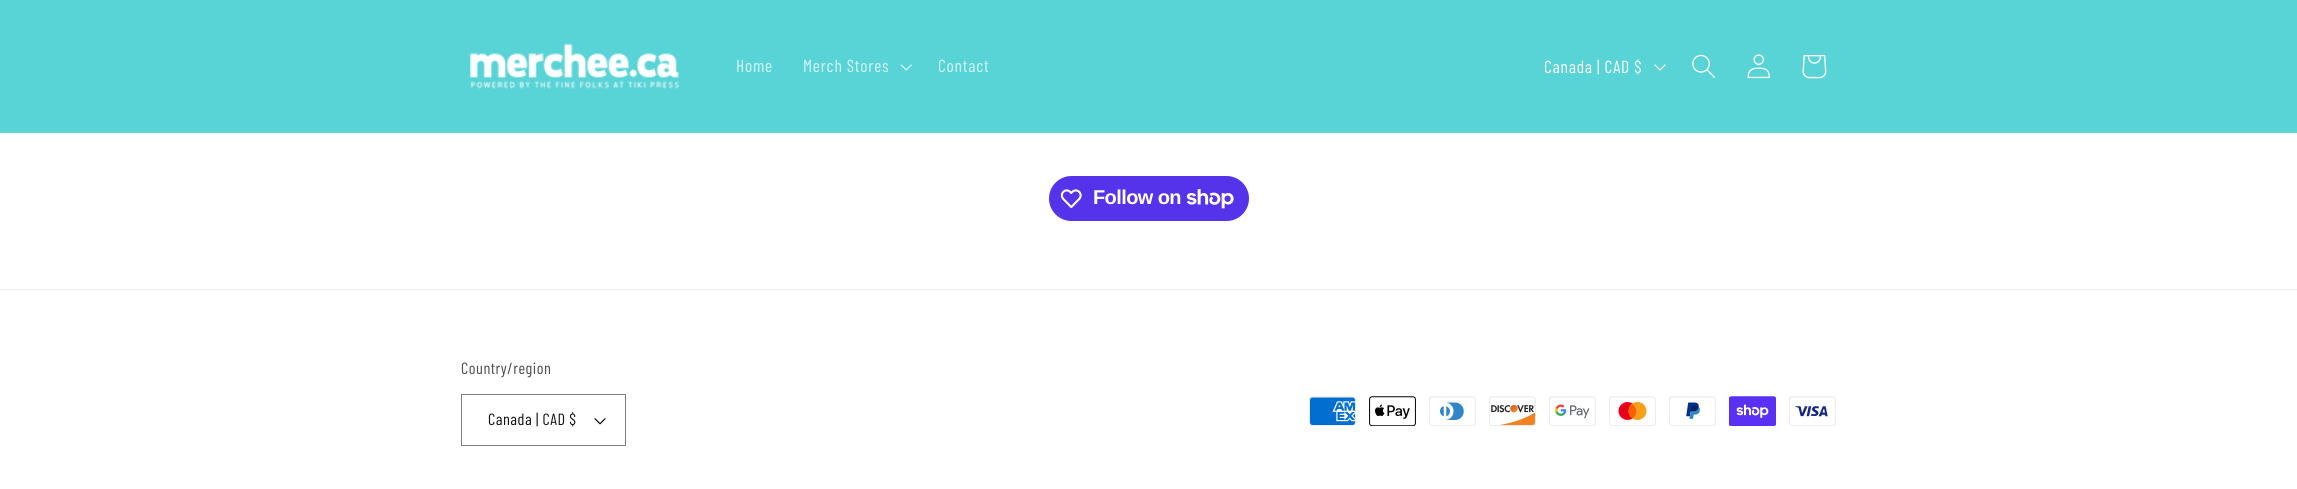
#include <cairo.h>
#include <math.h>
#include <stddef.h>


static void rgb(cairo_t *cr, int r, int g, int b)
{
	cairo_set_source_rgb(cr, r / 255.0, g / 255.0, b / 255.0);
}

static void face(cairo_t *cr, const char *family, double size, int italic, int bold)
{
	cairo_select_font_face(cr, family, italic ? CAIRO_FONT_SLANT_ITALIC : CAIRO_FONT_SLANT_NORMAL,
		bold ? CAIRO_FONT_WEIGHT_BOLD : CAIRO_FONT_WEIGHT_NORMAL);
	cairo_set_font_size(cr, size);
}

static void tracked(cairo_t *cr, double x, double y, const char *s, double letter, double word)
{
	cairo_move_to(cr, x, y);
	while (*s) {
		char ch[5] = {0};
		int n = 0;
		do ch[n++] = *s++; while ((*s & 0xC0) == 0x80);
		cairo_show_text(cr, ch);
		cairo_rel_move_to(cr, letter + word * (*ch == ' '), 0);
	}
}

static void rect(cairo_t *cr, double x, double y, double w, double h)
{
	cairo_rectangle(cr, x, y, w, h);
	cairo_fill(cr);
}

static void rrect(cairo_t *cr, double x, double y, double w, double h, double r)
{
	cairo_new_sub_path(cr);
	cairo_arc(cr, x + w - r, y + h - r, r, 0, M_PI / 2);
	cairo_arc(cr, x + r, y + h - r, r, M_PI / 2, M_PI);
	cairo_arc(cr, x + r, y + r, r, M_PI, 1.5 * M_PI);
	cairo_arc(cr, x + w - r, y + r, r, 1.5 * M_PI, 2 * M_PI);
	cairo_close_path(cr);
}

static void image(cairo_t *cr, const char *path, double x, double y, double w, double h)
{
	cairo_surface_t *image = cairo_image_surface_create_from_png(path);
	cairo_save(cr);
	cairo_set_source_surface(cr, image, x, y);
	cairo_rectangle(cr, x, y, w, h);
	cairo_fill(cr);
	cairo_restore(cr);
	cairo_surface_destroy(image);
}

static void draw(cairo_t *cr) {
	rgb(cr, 255, 255, 255);
	cairo_paint(cr);
	rgb(cr, 88, 211, 214);
	rect(cr, 0, 0, 2297, 133);
	rgb(cr, 101, 215, 217);
	rect(cr, 0, 131, 2297, 1);
	image(cr, "image0.png", 469, 43, 210, 46);
	face(cr, "Barlow Condensed", 17.5, 0, 0);
	rgb(cr, 213, 244, 245);
	tracked(cr, 736, 72, "Home", 0.75, 0);
	tracked(cr, 803, 72, "Merch Stores", 0.75, 0);
	image(cr, "image1.png", 900, 64, 12, 7);
	tracked(cr, 938, 72, "Contact", 0.75, 0);
	rgb(cr, 255, 255, 255);
	tracked(cr, 1544, 73, "Canada | CAD $", 0.75, 0);
	image(cr, "image2.png", 1654, 64, 12, 7);
	image(cr, "image3.png", 1692, 54, 23, 24);
	image(cr, "image4.png", 1747, 54, 23, 25);
	image(cr, "image5.png", 1802, 55, 25, 24);
	rgb(cr, 84, 51, 235);
	rrect(cr, 1049, 176, 200, 45, 22.5);
	cairo_fill(cr);
	image(cr, "image6.png", 1060, 189, 22, 20);
	face(cr, "Liberation Sans", 20, 0, 1);
	rgb(cr, 255, 255, 255);
	tracked(cr, 1093, 204, "Follow on", -0.6, 0);
	image(cr, "image7.png", 1186, 189, 48, 20);
	rgb(cr, 236, 236, 236);
	rect(cr, 0, 289, 2297, 1);
	face(cr, "Barlow Condensed", 16.25, 0, 0);
	rgb(cr, 77, 77, 77);
	tracked(cr, 461, 374, "Country/region", 0.5, 0);
	image(cr, "image8.png", 594, 418, 12, 7);
	cairo_rectangle(cr, 461.5, 394.5, 164, 51);
	rgb(cr, 125, 125, 125);
	cairo_set_line_width(cr, 1);
	cairo_stroke(cr);
	rgb(cr, 18, 18, 18);
	tracked(cr, 488, 425, "Canada | CAD $", 0.5, 0);
	image(cr, "image9.png", 1309, 396, 47, 30);
	image(cr, "image10.png", 1369, 396, 47, 30);
	image(cr, "image11.png", 1429, 396, 47, 30);
	image(cr, "image12.png", 1489, 396, 47, 30);
	image(cr, "image13.png", 1549, 396, 47, 30);
	image(cr, "image14.png", 1609, 396, 47, 30);
	image(cr, "image15.png", 1669, 396, 47, 30);
	image(cr, "image16.png", 1729, 396, 47, 30);
	image(cr, "image17.png", 1789, 396, 47, 30);
}

int main(void) {
	cairo_surface_t *surface = cairo_image_surface_create(CAIRO_FORMAT_RGB24, 2297, 489);
	cairo_t *cr = cairo_create(surface);
	cairo_font_options_t *options = cairo_font_options_create();
	cairo_font_options_set_hint_metrics(options, CAIRO_HINT_METRICS_OFF);
	cairo_font_options_set_hint_style(options, CAIRO_HINT_STYLE_NONE);
	cairo_set_font_options(cr, options);
	cairo_set_miter_limit(cr, 4);
	draw(cr);
	cairo_surface_write_to_png(surface, "render.png");
	cairo_font_options_destroy(options);
	cairo_destroy(cr);
	cairo_surface_destroy(surface);
	return 0;
}
